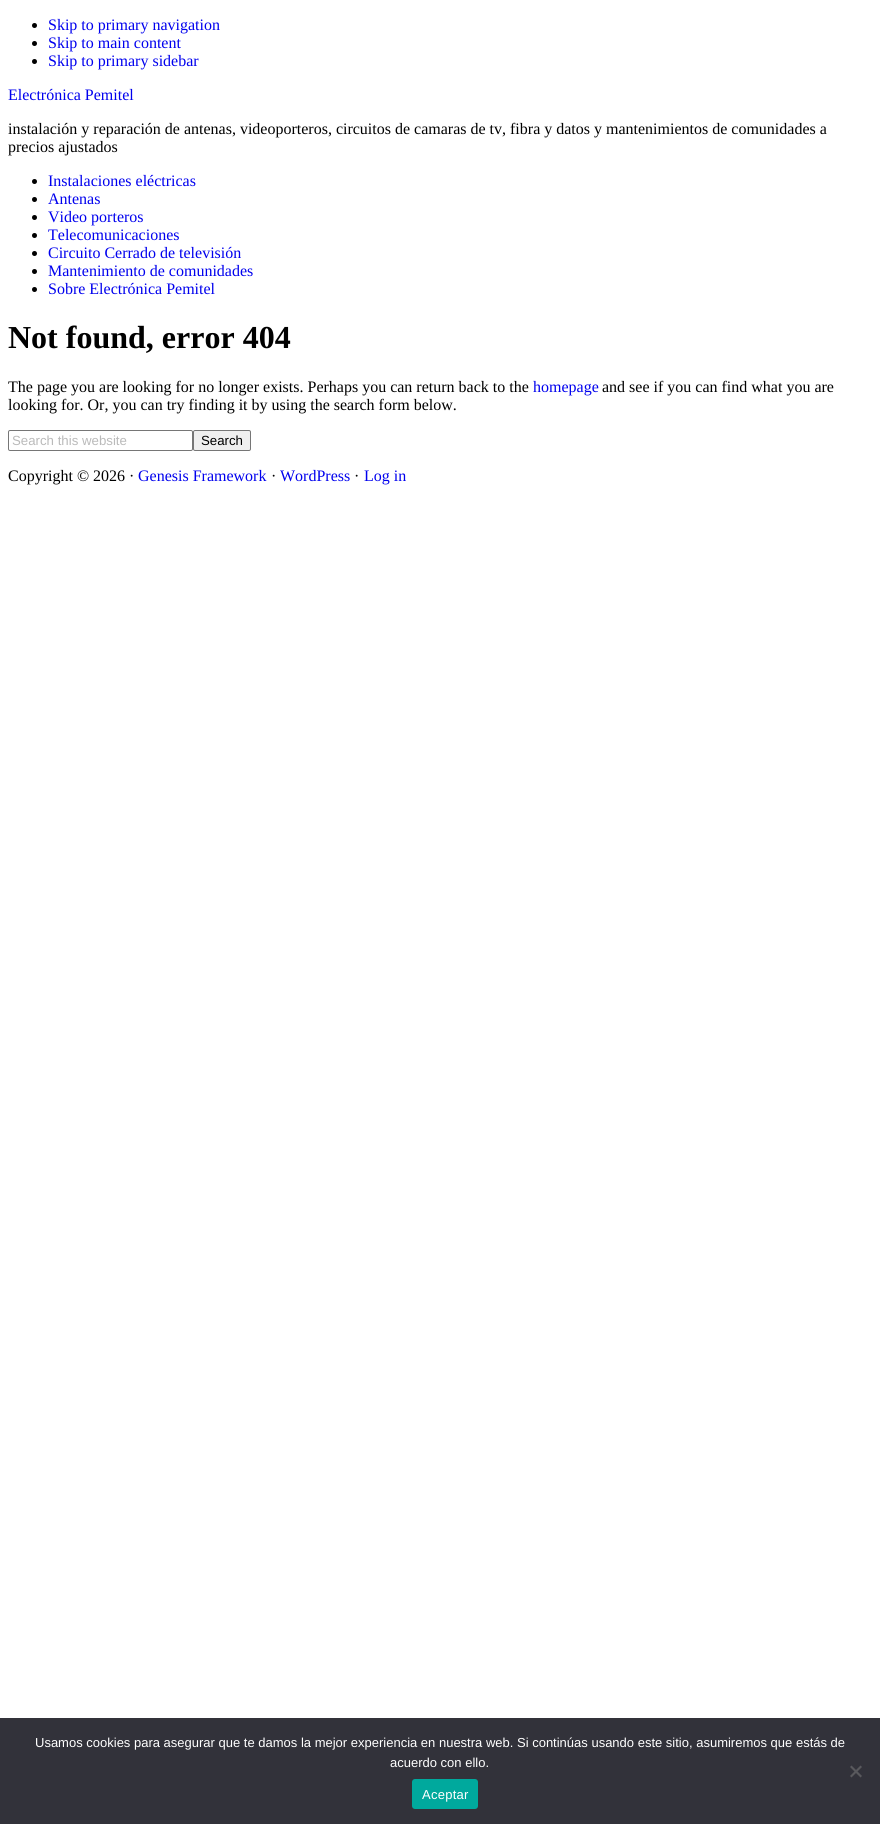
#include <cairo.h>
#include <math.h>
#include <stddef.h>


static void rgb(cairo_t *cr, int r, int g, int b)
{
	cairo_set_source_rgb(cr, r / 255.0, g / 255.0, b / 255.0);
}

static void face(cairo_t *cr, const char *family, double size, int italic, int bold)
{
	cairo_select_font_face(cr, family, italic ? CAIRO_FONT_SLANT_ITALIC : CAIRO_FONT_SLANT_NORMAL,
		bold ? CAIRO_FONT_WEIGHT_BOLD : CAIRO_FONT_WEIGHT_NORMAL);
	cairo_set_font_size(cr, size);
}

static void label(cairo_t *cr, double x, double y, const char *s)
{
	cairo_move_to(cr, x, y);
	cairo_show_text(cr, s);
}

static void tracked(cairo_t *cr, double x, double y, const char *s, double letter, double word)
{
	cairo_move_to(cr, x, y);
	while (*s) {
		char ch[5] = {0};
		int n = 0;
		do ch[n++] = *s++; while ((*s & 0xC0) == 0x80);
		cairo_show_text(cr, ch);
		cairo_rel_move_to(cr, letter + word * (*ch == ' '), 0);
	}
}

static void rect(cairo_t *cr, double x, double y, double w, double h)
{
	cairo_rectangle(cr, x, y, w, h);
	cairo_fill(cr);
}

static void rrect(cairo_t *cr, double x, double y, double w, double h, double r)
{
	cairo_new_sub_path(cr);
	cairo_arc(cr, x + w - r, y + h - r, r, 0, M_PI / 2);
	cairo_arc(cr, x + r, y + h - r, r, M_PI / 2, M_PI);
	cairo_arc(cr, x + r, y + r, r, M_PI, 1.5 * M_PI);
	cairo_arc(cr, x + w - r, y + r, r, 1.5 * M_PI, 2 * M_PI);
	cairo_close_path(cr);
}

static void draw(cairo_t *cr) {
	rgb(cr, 255, 255, 255);
	cairo_paint(cr);
	rgb(cr, 0, 0, 0);
	cairo_arc(cr, 34.5, 25.5, 2.5, 0, 2 * M_PI);
	cairo_fill(cr);
	face(cr, "Liberation Serif", 16, 0, 0);
	rgb(cr, 0, 0, 238);
	label(cr, 48, 30, "Skip to primary navigation");
	rgb(cr, 0, 0, 0);
	cairo_new_path(cr);
	cairo_arc(cr, 34.5, 43.5, 2.5, 0, 2 * M_PI);
	cairo_fill(cr);
	rgb(cr, 0, 0, 238);
	label(cr, 48, 48, "Skip to main content");
	rgb(cr, 0, 0, 0);
	cairo_new_path(cr);
	cairo_arc(cr, 34.5, 61.5, 2.5, 0, 2 * M_PI);
	cairo_fill(cr);
	rgb(cr, 0, 0, 238);
	label(cr, 48, 66, "Skip to primary sidebar");
	label(cr, 8, 100, "Electrónica Pemitel");
	rgb(cr, 0, 0, 0);
	label(cr, 8, 134, "instalación y reparación de antenas, videoporteros, circuitos de camaras de tv, fibra y datos y mantenimientos de comunidades a");
	label(cr, 8, 152, "precios ajustados");
	cairo_new_path(cr);
	cairo_arc(cr, 34.5, 181.5, 2.5, 0, 2 * M_PI);
	cairo_fill(cr);
	rgb(cr, 0, 0, 238);
	label(cr, 48, 186, "Instalaciones eléctricas");
	rgb(cr, 0, 0, 0);
	cairo_new_path(cr);
	cairo_arc(cr, 34.5, 199.5, 2.5, 0, 2 * M_PI);
	cairo_fill(cr);
	rgb(cr, 0, 0, 238);
	label(cr, 48, 204, "Antenas");
	rgb(cr, 0, 0, 0);
	cairo_new_path(cr);
	cairo_arc(cr, 34.5, 217.5, 2.5, 0, 2 * M_PI);
	cairo_fill(cr);
	rgb(cr, 0, 0, 238);
	label(cr, 48, 222, "Video porteros");
	rgb(cr, 0, 0, 0);
	cairo_new_path(cr);
	cairo_arc(cr, 34.5, 235.5, 2.5, 0, 2 * M_PI);
	cairo_fill(cr);
	rgb(cr, 0, 0, 238);
	label(cr, 48, 240, "Telecomunicaciones");
	rgb(cr, 0, 0, 0);
	cairo_new_path(cr);
	cairo_arc(cr, 34.5, 253.5, 2.5, 0, 2 * M_PI);
	cairo_fill(cr);
	rgb(cr, 0, 0, 238);
	label(cr, 48, 258, "Circuito Cerrado de televisión");
	rgb(cr, 0, 0, 0);
	cairo_new_path(cr);
	cairo_arc(cr, 34.5, 271.5, 2.5, 0, 2 * M_PI);
	cairo_fill(cr);
	rgb(cr, 0, 0, 238);
	label(cr, 48, 276, "Mantenimiento de comunidades");
	rgb(cr, 0, 0, 0);
	cairo_new_path(cr);
	cairo_arc(cr, 34.5, 289.5, 2.5, 0, 2 * M_PI);
	cairo_fill(cr);
	rgb(cr, 0, 0, 238);
	label(cr, 48, 294, "Sobre Electrónica Pemitel");
	face(cr, "Liberation Serif", 32, 0, 1);
	rgb(cr, 0, 0, 0);
	label(cr, 8, 348, "Not found, error 404");
	face(cr, "Liberation Serif", 16, 0, 0);
	label(cr, 8, 392, "The page you are looking for no longer exists. Perhaps you can return back to the");
	rgb(cr, 0, 0, 238);
	label(cr, 533, 392, "homepage");
	rgb(cr, 0, 0, 0);
	label(cr, 602, 392, "and see if you can find what you are");
	label(cr, 8, 410, "looking for. Or, you can try finding it by using the search form below.");
	rrect(cr, 8.5, 430.5, 184, 20, 1.5);
	rgb(cr, 118, 118, 118);
	cairo_set_line_width(cr, 1);
	cairo_stroke(cr);
	face(cr, "Liberation Sans", 13.25, 0, 0);
	rgb(cr, 186, 186, 186);
	label(cr, 12, 445, "Search this website");
	rgb(cr, 239, 239, 239);
	rrect(cr, 193.5, 430.5, 57, 20, 1.5);
	cairo_fill_preserve(cr);
	rgb(cr, 118, 118, 118);
	cairo_stroke(cr);
	rgb(cr, 0, 0, 0);
	label(cr, 201, 445, "Search");
	face(cr, "Liberation Serif", 16, 0, 0);
	label(cr, 8, 481, "Copyright © 2026 ·");
	rgb(cr, 0, 0, 238);
	label(cr, 138, 481, "Genesis Framework");
	rgb(cr, 0, 0, 0);
	label(cr, 271, 481, "·");
	rgb(cr, 0, 0, 238);
	label(cr, 280, 481, "WordPress");
	rgb(cr, 0, 0, 0);
	label(cr, 354, 481, "·");
	rgb(cr, 0, 0, 238);
	label(cr, 364, 481, "Log in");
	rgb(cr, 50, 50, 58);
	rect(cr, 0, 1718, 880, 106);
	face(cr, "Liberation Sans", 13, 0, 0);
	rgb(cr, 255, 255, 255);
	label(cr, 35, 1747, "Usamos cookies para asegurar que te damos la mejor experiencia en nuestra web. Si continúas usando este sitio, asumiremos que estás de");
	label(cr, 390, 1767, "acuerdo con ello.");
	rgb(cr, 89, 89, 93);
	cairo_new_path(cr);
	cairo_move_to(cr, 860.5, 1765.5);
	cairo_line_to(cr, 862, 1767);
	cairo_line_to(cr, 851.5, 1777.5);
	cairo_line_to(cr, 850, 1776);
	cairo_close_path(cr);
	cairo_fill(cr);
	cairo_new_path(cr);
	cairo_move_to(cr, 850, 1767);
	cairo_line_to(cr, 851.5, 1765.5);
	cairo_line_to(cr, 862, 1776);
	cairo_line_to(cr, 860.5, 1777.5);
	cairo_close_path(cr);
	cairo_fill(cr);
	rgb(cr, 0, 169, 157);
	rrect(cr, 412, 1779, 66, 30, 3);
	cairo_fill(cr);
	rgb(cr, 255, 255, 255);
	tracked(cr, 422, 1799, "Aceptar", 0.25, 0);
}

int main(void) {
	cairo_surface_t *surface = cairo_image_surface_create(CAIRO_FORMAT_RGB24, 880, 1824);
	cairo_t *cr = cairo_create(surface);
	cairo_font_options_t *options = cairo_font_options_create();
	cairo_font_options_set_hint_metrics(options, CAIRO_HINT_METRICS_OFF);
	cairo_font_options_set_hint_style(options, CAIRO_HINT_STYLE_NONE);
	cairo_set_font_options(cr, options);
	cairo_set_miter_limit(cr, 4);
	draw(cr);
	cairo_surface_write_to_png(surface, "render.png");
	cairo_font_options_destroy(options);
	cairo_destroy(cr);
	cairo_surface_destroy(surface);
	return 0;
}
